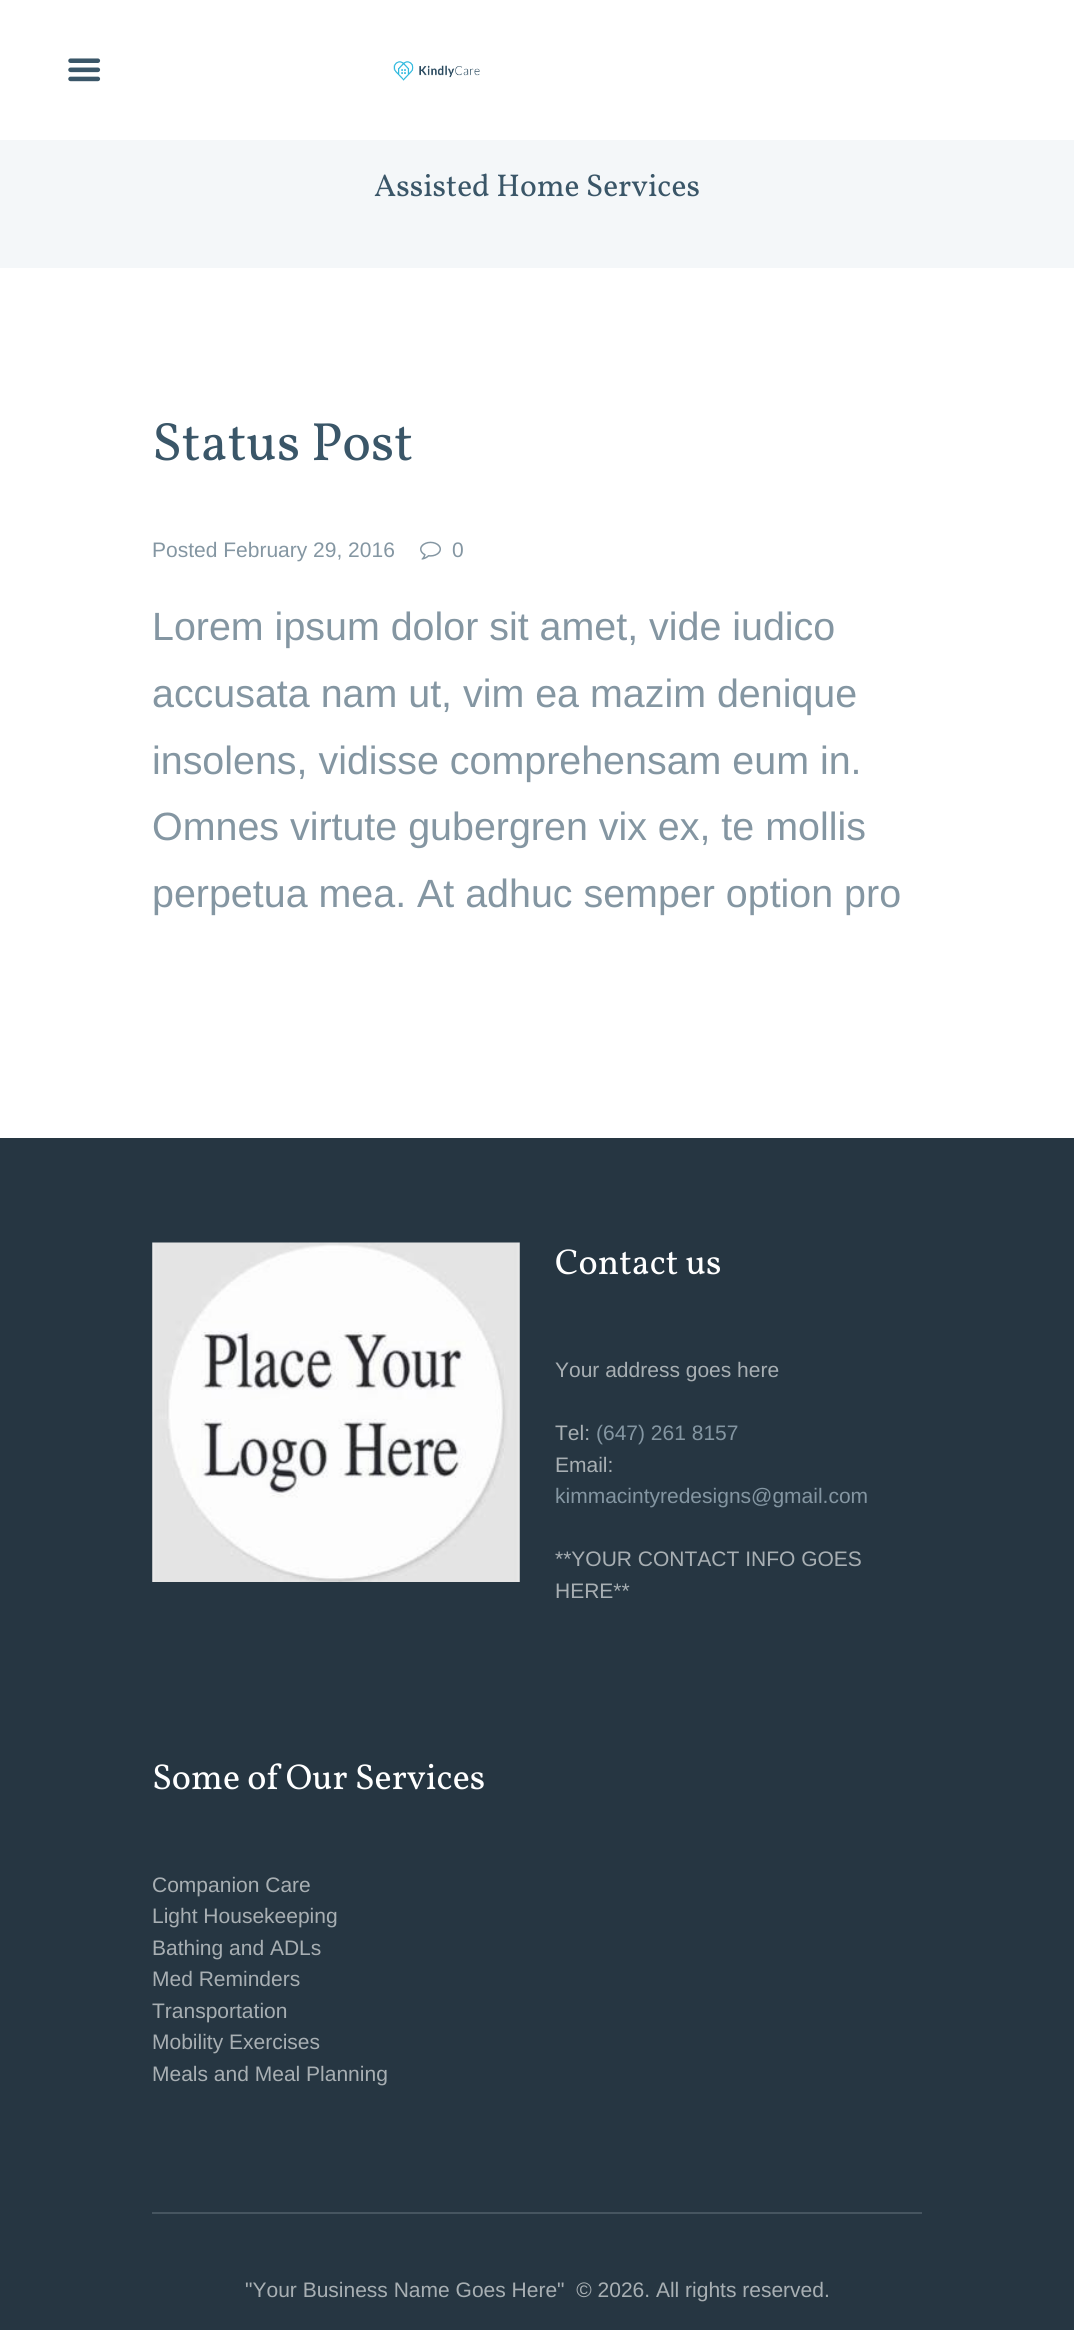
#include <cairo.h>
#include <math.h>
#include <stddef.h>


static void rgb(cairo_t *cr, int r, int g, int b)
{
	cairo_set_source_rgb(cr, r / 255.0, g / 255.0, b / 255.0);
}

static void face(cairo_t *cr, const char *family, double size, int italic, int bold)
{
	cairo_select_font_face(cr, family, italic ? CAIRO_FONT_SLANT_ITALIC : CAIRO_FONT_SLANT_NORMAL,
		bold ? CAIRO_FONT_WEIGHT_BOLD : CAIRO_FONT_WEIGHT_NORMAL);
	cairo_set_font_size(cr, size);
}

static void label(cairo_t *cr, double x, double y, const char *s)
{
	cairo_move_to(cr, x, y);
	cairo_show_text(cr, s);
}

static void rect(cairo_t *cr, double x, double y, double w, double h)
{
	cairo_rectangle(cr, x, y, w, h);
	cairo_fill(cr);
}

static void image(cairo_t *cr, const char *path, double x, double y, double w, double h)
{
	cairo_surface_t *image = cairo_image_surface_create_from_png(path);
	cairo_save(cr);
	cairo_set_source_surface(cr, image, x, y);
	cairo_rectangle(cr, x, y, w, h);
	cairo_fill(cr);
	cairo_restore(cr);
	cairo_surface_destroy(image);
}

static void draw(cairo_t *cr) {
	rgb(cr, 255, 255, 255);
	cairo_paint(cr);
	image(cr, "image0.png", 68, 58, 33, 24);
	image(cr, "image1.png", 393, 61, 87, 20);
	rgb(cr, 244, 247, 249);
	rect(cr, 0, 140, 1074, 128);
	face(cr, "Vollkorn", 31.5, 0, 0);
	rgb(cr, 58, 86, 104);
	label(cr, 374, 196, "Assisted Home Services");
	face(cr, "Vollkorn", 54, 0, 0);
	label(cr, 152, 460, "Status Post");
	face(cr, "Liberation Sans", 21, 0, 0);
	rgb(cr, 132, 150, 162);
	label(cr, 152, 557, "Posted February 29, 2016");
	image(cr, "image2.png", 420, 541, 21, 19);
	label(cr, 452, 557, "0");
	face(cr, "Liberation Sans", 39.4, 0, 0);
	label(cr, 152, 640, "Lorem ipsum dolor sit amet, vide iudico");
	label(cr, 152, 707, "accusata nam ut, vim ea mazim denique");
	label(cr, 152, 774, "insolens, vidisse comprehensam eum in.");
	label(cr, 152, 840, "Omnes virtute gubergren vix ex, te mollis");
	label(cr, 152, 907, "perpetua mea. At adhuc semper option pro");
	rgb(cr, 38, 54, 66);
	rect(cr, 0, 1138, 1074, 1192);
	image(cr, "image3.png", 152, 1242, 368, 340);
	face(cr, "Vollkorn", 36, 0, 0);
	rgb(cr, 255, 255, 255);
	label(cr, 555, 1274, "Contact us");
	face(cr, "Liberation Sans", 21, 0, 0);
	rgb(cr, 168, 175, 179);
	label(cr, 555, 1377, "Your address goes here");
	label(cr, 555, 1440, "Tel:");
	rgb(cr, 132, 150, 162);
	label(cr, 596, 1440, "(647) 261 8157");
	rgb(cr, 168, 175, 179);
	label(cr, 555, 1472, "Email:");
	rgb(cr, 132, 150, 162);
	label(cr, 555, 1503, "kimmacintyredesigns@gmail.com");
	rgb(cr, 168, 175, 179);
	label(cr, 555, 1566, "**YOUR CONTACT INFO GOES");
	label(cr, 555, 1598, "HERE**");
	face(cr, "Vollkorn", 36, 0, 0);
	rgb(cr, 255, 255, 255);
	label(cr, 152, 1789, "Some of Our Services");
	face(cr, "Liberation Sans", 21, 0, 0);
	rgb(cr, 168, 175, 179);
	label(cr, 152, 1892, "Companion Care");
	label(cr, 152, 1923, "Light Housekeeping");
	label(cr, 152, 1955, "Bathing and ADLs");
	label(cr, 152, 1986, "Med Reminders");
	label(cr, 152, 2018, "Transportation");
	label(cr, 152, 2049, "Mobility Exercises");
	label(cr, 152, 2081, "Meals and Meal Planning");
	rgb(cr, 70, 85, 96);
	rect(cr, 152, 2212, 770, 2);
	rgb(cr, 168, 175, 179);
	label(cr, 245, 2297, "\"Your Business Name Goes Here\"  © 2026. All rights reserved.");
}

int main(void) {
	cairo_surface_t *surface = cairo_image_surface_create(CAIRO_FORMAT_RGB24, 1074, 2330);
	cairo_t *cr = cairo_create(surface);
	cairo_font_options_t *options = cairo_font_options_create();
	cairo_font_options_set_hint_metrics(options, CAIRO_HINT_METRICS_OFF);
	cairo_font_options_set_hint_style(options, CAIRO_HINT_STYLE_NONE);
	cairo_set_font_options(cr, options);
	cairo_set_miter_limit(cr, 4);
	draw(cr);
	cairo_surface_write_to_png(surface, "render.png");
	cairo_font_options_destroy(options);
	cairo_destroy(cr);
	cairo_surface_destroy(surface);
	return 0;
}
